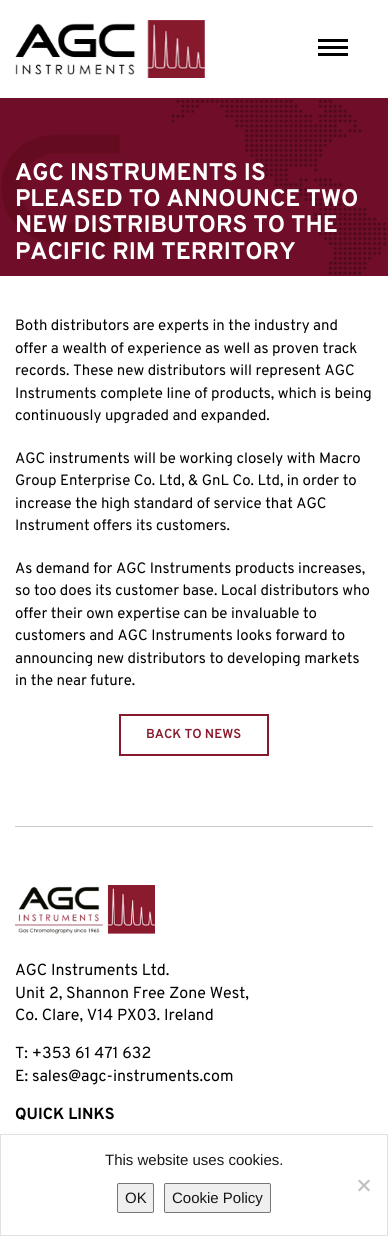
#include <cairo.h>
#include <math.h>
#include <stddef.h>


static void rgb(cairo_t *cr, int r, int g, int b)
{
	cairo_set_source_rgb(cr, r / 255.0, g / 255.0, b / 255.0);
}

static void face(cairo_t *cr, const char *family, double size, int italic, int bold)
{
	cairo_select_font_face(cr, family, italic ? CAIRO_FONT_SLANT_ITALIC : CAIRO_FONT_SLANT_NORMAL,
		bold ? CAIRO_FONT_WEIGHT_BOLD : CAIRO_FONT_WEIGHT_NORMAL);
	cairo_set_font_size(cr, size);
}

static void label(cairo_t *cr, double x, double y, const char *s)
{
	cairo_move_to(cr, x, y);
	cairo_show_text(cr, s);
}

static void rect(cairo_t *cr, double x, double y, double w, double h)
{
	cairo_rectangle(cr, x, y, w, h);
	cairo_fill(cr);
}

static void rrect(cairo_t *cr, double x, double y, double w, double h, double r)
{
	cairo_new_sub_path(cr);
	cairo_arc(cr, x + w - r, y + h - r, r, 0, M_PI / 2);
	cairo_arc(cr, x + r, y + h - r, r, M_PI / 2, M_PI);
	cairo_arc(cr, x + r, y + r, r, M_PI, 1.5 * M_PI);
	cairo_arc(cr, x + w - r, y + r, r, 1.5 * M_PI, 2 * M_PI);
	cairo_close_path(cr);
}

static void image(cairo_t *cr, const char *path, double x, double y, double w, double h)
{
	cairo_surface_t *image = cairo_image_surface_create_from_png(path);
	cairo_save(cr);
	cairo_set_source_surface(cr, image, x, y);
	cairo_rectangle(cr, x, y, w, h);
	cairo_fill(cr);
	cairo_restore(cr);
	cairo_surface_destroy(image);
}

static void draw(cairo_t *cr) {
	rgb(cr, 255, 255, 255);
	cairo_paint(cr);
	image(cr, "image0.png", 15, 20, 190, 58);
	rgb(cr, 0, 0, 0);
	rect(cr, 318, 39, 30, 3);
	rect(cr, 318, 46, 30, 3);
	rect(cr, 318, 53, 30, 3);
	image(cr, "image1.png", 0, 98, 388, 178);
	face(cr, "Overpass", 24, 0, 1);
	rgb(cr, 255, 255, 255);
	label(cr, 15, 180, "AGC INSTRUMENTS IS");
	label(cr, 15, 206, "PLEASED TO ANNOUNCE TWO");
	label(cr, 15, 232, "NEW DISTRIBUTORS TO THE");
	label(cr, 15, 259, "PACIFIC RIM TERRITORY");
	face(cr, "Overpass", 15, 0, 0);
	rgb(cr, 1, 1, 1);
	label(cr, 15, 330, "Both distributors are experts in the industry and");
	label(cr, 15, 353, "offer a wealth of experience as well as proven track");
	label(cr, 15, 375, "records. These new distributors will represent AGC");
	label(cr, 15, 398, "Instruments complete line of products, which is being");
	label(cr, 15, 420, "continuously upgraded and expanded.");
	label(cr, 15, 463, "AGC instruments will be working closely with Macro");
	label(cr, 15, 485, "Group Enterprise Co. Ltd, & GnL Co. Ltd, in order to");
	label(cr, 15, 508, "increase the high standard of service that AGC");
	label(cr, 15, 530, "Instrument offers its customers.");
	label(cr, 15, 573, "As demand for AGC Instruments products increases,");
	label(cr, 15, 595, "so too does its customer base. Local distributors who");
	label(cr, 15, 618, "offer their own expertise can be invaluable to");
	label(cr, 15, 640, "customers and AGC Instruments looks forward to");
	label(cr, 15, 663, "announcing new distributors to developing markets");
	label(cr, 15, 685, "in the near future.");
	cairo_rectangle(cr, 120, 715, 148, 40);
	rgb(cr, 135, 25, 45);
	cairo_stroke(cr);
	face(cr, "Overpass SemiBold", 13, 0, 0);
	label(cr, 146, 738, "BACK TO NEWS");
	rgb(cr, 204, 204, 204);
	rect(cr, 15, 826, 358, 1);
	image(cr, "image2.png", 15, 885, 140, 49);
	face(cr, "Overpass", 16, 0, 0);
	rgb(cr, 1, 1, 1);
	label(cr, 15, 975, "AGC Instruments Ltd.");
	label(cr, 15, 998, "Unit 2, Shannon Free Zone West,");
	label(cr, 15, 1020, "Co. Clare, V14 PX03. Ireland");
	label(cr, 15, 1058, "T: +353 61 471 632");
	label(cr, 15, 1081, "E: sales@agc-instruments.com");
	face(cr, "Overpass", 16, 0, 1);
	label(cr, 15, 1119, "QUICK LINKS");
	cairo_rectangle(cr, 0.5, 1134.5, 387, 101);
	rgb(cr, 227, 224, 224);
	cairo_set_line_width(cr, 1);
	cairo_stroke(cr);
	face(cr, "Liberation Sans", 15, 0, 0);
	rgb(cr, 22, 22, 22);
	label(cr, 105, 1165, "This website uses cookies.");
	rgb(cr, 192, 192, 192);
	cairo_new_path(cr);
	cairo_move_to(cr, 368.5, 1179.5);
	cairo_line_to(cr, 370, 1181);
	cairo_line_to(cr, 359.5, 1191.5);
	cairo_line_to(cr, 358, 1190);
	cairo_close_path(cr);
	cairo_fill(cr);
	cairo_new_path(cr);
	cairo_move_to(cr, 358, 1181);
	cairo_line_to(cr, 359.5, 1179.5);
	cairo_line_to(cr, 370, 1190);
	cairo_line_to(cr, 368.5, 1191.5);
	cairo_close_path(cr);
	cairo_fill(cr);
	rgb(cr, 239, 239, 239);
	rrect(cr, 117.5, 1183.5, 36, 29, 1.5);
	cairo_fill_preserve(cr);
	rgb(cr, 118, 118, 118);
	cairo_stroke(cr);
	rgb(cr, 22, 22, 22);
	label(cr, 125, 1203, "OK");
	rgb(cr, 239, 239, 239);
	rrect(cr, 164.5, 1183.5, 106, 29, 1.5);
	cairo_fill_preserve(cr);
	rgb(cr, 118, 118, 118);
	cairo_stroke(cr);
	rgb(cr, 22, 22, 22);
	label(cr, 172, 1203, "Cookie Policy");
}

int main(void) {
	cairo_surface_t *surface = cairo_image_surface_create(CAIRO_FORMAT_RGB24, 388, 1236);
	cairo_t *cr = cairo_create(surface);
	cairo_font_options_t *options = cairo_font_options_create();
	cairo_font_options_set_hint_metrics(options, CAIRO_HINT_METRICS_OFF);
	cairo_font_options_set_hint_style(options, CAIRO_HINT_STYLE_NONE);
	cairo_set_font_options(cr, options);
	cairo_set_miter_limit(cr, 4);
	draw(cr);
	cairo_surface_write_to_png(surface, "render.png");
	cairo_font_options_destroy(options);
	cairo_destroy(cr);
	cairo_surface_destroy(surface);
	return 0;
}
